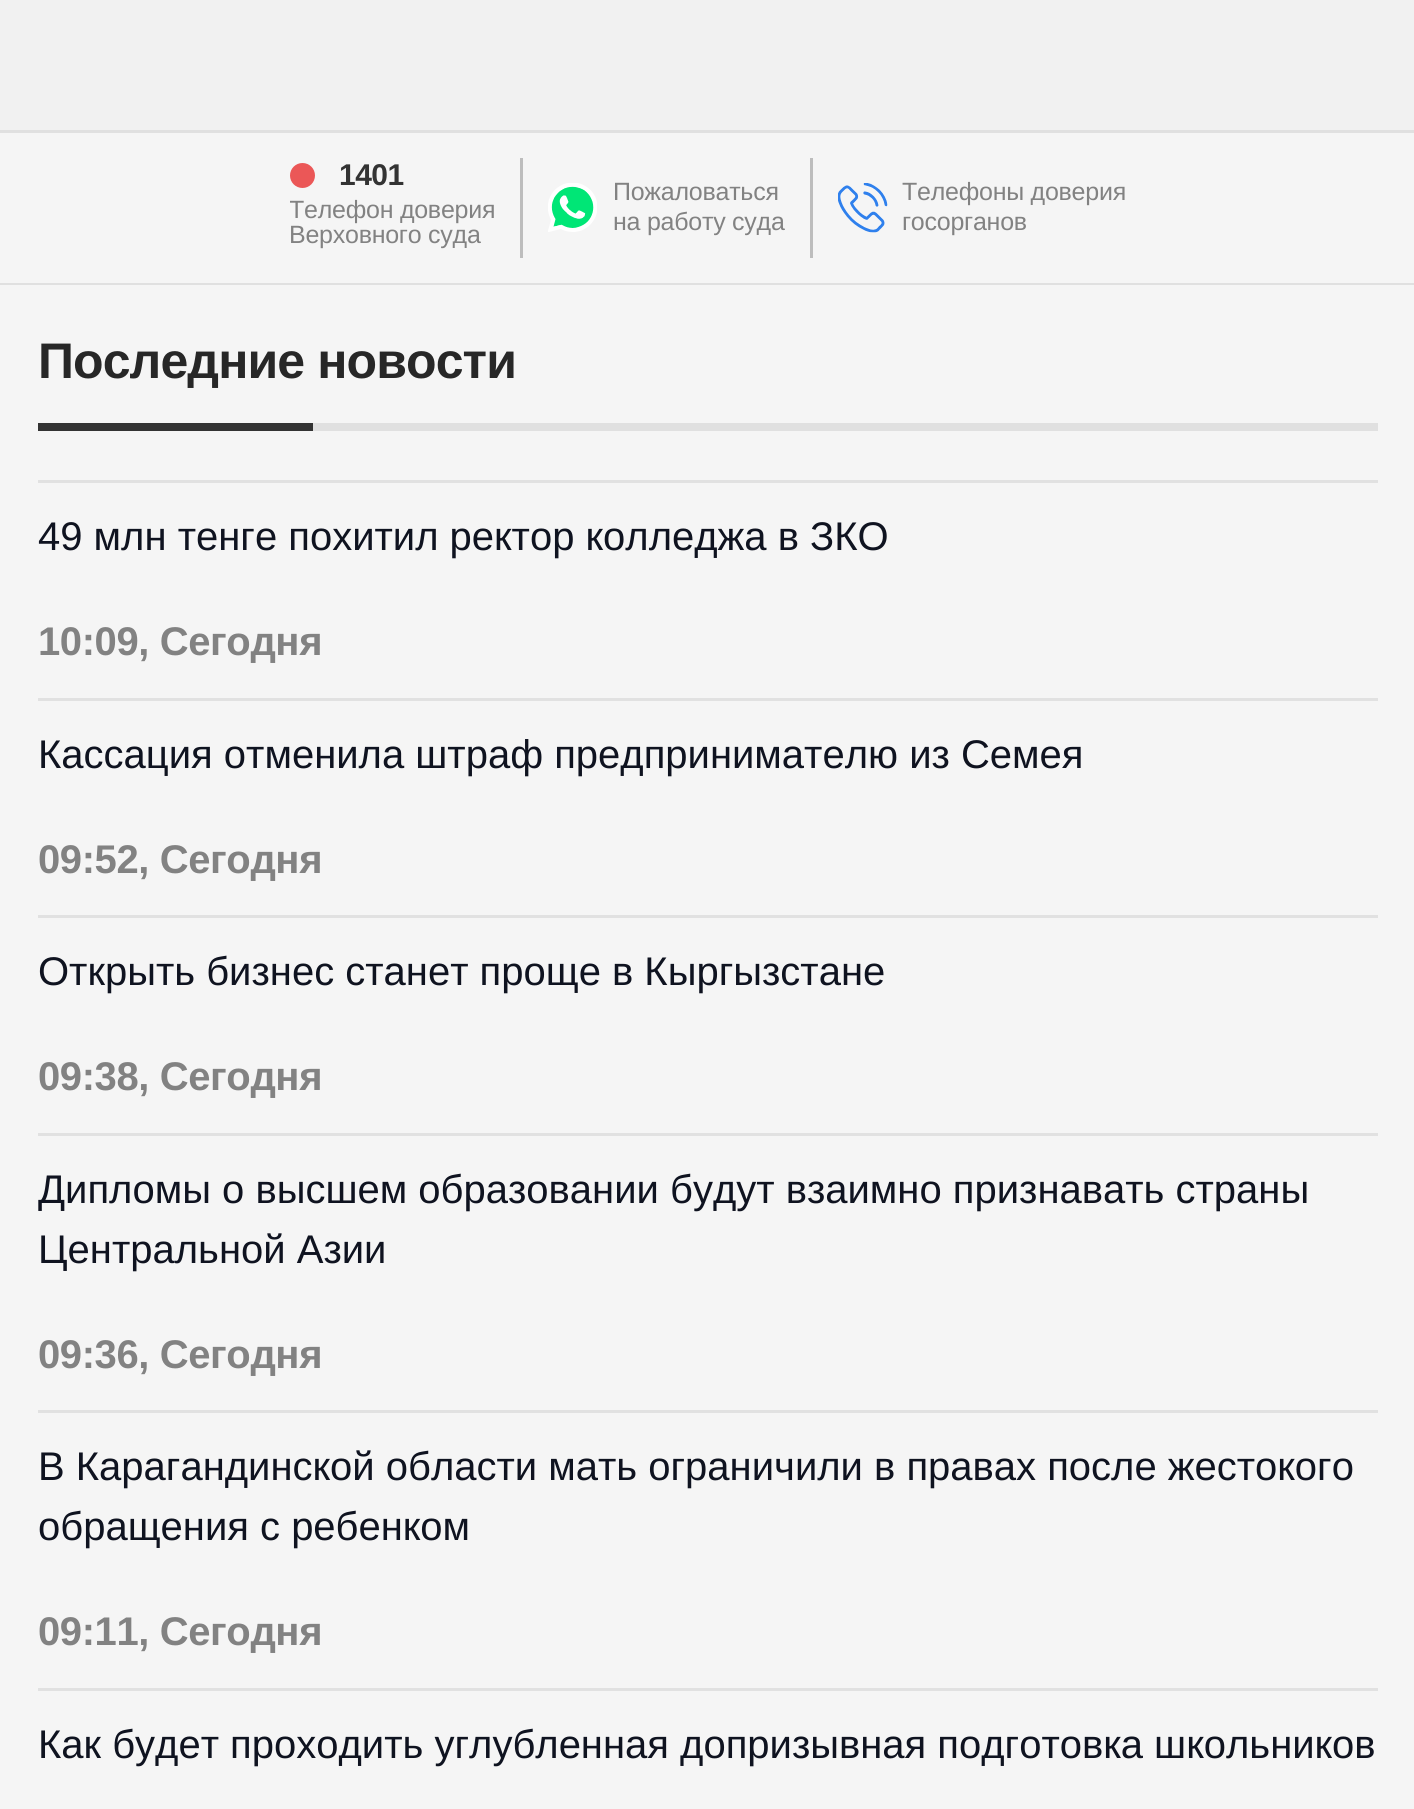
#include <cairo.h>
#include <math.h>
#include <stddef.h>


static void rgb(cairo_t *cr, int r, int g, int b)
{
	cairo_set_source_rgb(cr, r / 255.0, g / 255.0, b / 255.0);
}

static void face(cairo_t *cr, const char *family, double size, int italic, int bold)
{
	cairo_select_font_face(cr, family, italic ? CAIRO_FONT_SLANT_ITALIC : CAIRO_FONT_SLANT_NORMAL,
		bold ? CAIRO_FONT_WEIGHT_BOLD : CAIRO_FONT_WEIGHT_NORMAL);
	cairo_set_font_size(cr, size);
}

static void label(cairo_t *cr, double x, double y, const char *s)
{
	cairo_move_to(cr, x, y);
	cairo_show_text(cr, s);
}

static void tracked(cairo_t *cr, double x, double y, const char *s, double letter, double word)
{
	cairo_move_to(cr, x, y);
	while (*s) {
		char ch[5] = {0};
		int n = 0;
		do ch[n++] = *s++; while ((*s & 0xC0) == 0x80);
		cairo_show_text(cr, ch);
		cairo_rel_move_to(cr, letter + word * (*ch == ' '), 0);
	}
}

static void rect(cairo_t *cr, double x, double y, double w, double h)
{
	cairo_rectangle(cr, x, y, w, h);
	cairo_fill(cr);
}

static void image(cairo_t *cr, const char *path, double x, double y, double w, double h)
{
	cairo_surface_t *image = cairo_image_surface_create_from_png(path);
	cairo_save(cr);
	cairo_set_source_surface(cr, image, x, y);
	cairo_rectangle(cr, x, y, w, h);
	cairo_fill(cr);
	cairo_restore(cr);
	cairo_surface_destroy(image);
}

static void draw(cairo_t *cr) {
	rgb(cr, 241, 241, 241);
	cairo_paint(cr);
	rgb(cr, 224, 224, 224);
	rect(cr, 0, 130, 1414, 3);
	rgb(cr, 245, 245, 245);
	rect(cr, 0, 133, 1414, 150);
	rgb(cr, 224, 224, 224);
	rect(cr, 0, 283, 1414, 2);
	rgb(cr, 189, 189, 189);
	rect(cr, 520, 158, 3, 100);
	rgb(cr, 235, 87, 87);
	cairo_arc(cr, 302.5, 175.5, 12.5, 0, 2 * M_PI);
	cairo_fill(cr);
	face(cr, "Liberation Sans", 30, 0, 1);
	rgb(cr, 51, 51, 51);
	tracked(cr, 339, 185, "1401", -0.5, 0);
	cairo_save(cr);
	cairo_rectangle(cr, 290, 158, 835, 100);
	cairo_clip(cr);
	face(cr, "Liberation Sans", 25, 0, 0);
	rgb(cr, 130, 130, 130);
	tracked(cr, 289, 218, "Телефон доверия", -0.25, 0);
	cairo_restore(cr);
	face(cr, "Liberation Sans", 25, 0, 0);
	rgb(cr, 130, 130, 130);
	tracked(cr, 289, 243, "Верховного суда", -0.25, 0);
	image(cr, "image0.png", 548, 183, 49, 49);
	tracked(cr, 613, 200, "Пожаловаться", -0.25, 0);
	tracked(cr, 613, 230, "на работу суда", -0.25, 0);
	rgb(cr, 189, 189, 189);
	rect(cr, 810, 158, 3, 100);
	image(cr, "image1.png", 838, 183, 50, 50);
	rgb(cr, 130, 130, 130);
	tracked(cr, 902, 200, "Телефоны доверия", -0.25, 0);
	tracked(cr, 902, 230, "госорганов", -0.25, 0);
	rgb(cr, 245, 245, 245);
	rect(cr, 0, 285, 1414, 1524);
	rgb(cr, 224, 224, 224);
	rect(cr, 313, 423, 1065, 8);
	face(cr, "Liberation Sans", 50, 0, 1);
	rgb(cr, 39, 39, 39);
	tracked(cr, 38, 378, "Последние новости", -0.9, 0);
	rgb(cr, 51, 51, 51);
	rect(cr, 38, 423, 275, 8);
	rgb(cr, 225, 225, 225);
	rect(cr, 38, 480, 1340, 3);
	rect(cr, 38, 698, 1340, 3);
	face(cr, "Liberation Sans", 40, 0, 0);
	rgb(cr, 15, 19, 32);
	label(cr, 38, 550, "49 млн тенге похитил ректор колледжа в ЗКО");
	face(cr, "Liberation Sans", 40, 0, 1);
	rgb(cr, 130, 130, 130);
	tracked(cr, 38, 655, "10:09, Сегодня", -0.4, 0);
	rgb(cr, 225, 225, 225);
	rect(cr, 38, 915, 1340, 3);
	face(cr, "Liberation Sans", 40, 0, 0);
	rgb(cr, 15, 19, 32);
	label(cr, 38, 768, "Кассация отменила штраф предпринимателю из Семея");
	face(cr, "Liberation Sans", 40, 0, 1);
	rgb(cr, 130, 130, 130);
	tracked(cr, 38, 873, "09:52, Сегодня", -0.4, 0);
	rgb(cr, 225, 225, 225);
	rect(cr, 38, 1133, 1340, 3);
	face(cr, "Liberation Sans", 40, 0, 0);
	rgb(cr, 15, 19, 32);
	label(cr, 38, 985, "Открыть бизнес станет проще в Кыргызстане");
	face(cr, "Liberation Sans", 40, 0, 1);
	rgb(cr, 130, 130, 130);
	tracked(cr, 38, 1090, "09:38, Сегодня", -0.4, 0);
	rgb(cr, 225, 225, 225);
	rect(cr, 38, 1410, 1340, 3);
	face(cr, "Liberation Sans", 40, 0, 0);
	rgb(cr, 15, 19, 32);
	label(cr, 38, 1203, "Дипломы о высшем образовании будут взаимно признавать страны");
	label(cr, 38, 1263, "Центральной Азии");
	face(cr, "Liberation Sans", 40, 0, 1);
	rgb(cr, 130, 130, 130);
	tracked(cr, 38, 1368, "09:36, Сегодня", -0.4, 0);
	rgb(cr, 225, 225, 225);
	rect(cr, 38, 1688, 1340, 3);
	face(cr, "Liberation Sans", 40, 0, 0);
	rgb(cr, 15, 19, 32);
	label(cr, 38, 1480, "В Карагандинской области мать ограничили в правах после жестокого");
	label(cr, 38, 1540, "обращения с ребенком");
	face(cr, "Liberation Sans", 40, 0, 1);
	rgb(cr, 130, 130, 130);
	tracked(cr, 38, 1645, "09:11, Сегодня", -0.4, 0);
	face(cr, "Liberation Sans", 40, 0, 0);
	rgb(cr, 15, 19, 32);
	label(cr, 38, 1758, "Как будет проходить углубленная допризывная подготовка школьников");
}

int main(void) {
	cairo_surface_t *surface = cairo_image_surface_create(CAIRO_FORMAT_RGB24, 1414, 1809);
	cairo_t *cr = cairo_create(surface);
	cairo_font_options_t *options = cairo_font_options_create();
	cairo_font_options_set_hint_metrics(options, CAIRO_HINT_METRICS_OFF);
	cairo_font_options_set_hint_style(options, CAIRO_HINT_STYLE_NONE);
	cairo_set_font_options(cr, options);
	cairo_set_miter_limit(cr, 4);
	draw(cr);
	cairo_surface_write_to_png(surface, "render.png");
	cairo_font_options_destroy(options);
	cairo_destroy(cr);
	cairo_surface_destroy(surface);
	return 0;
}
